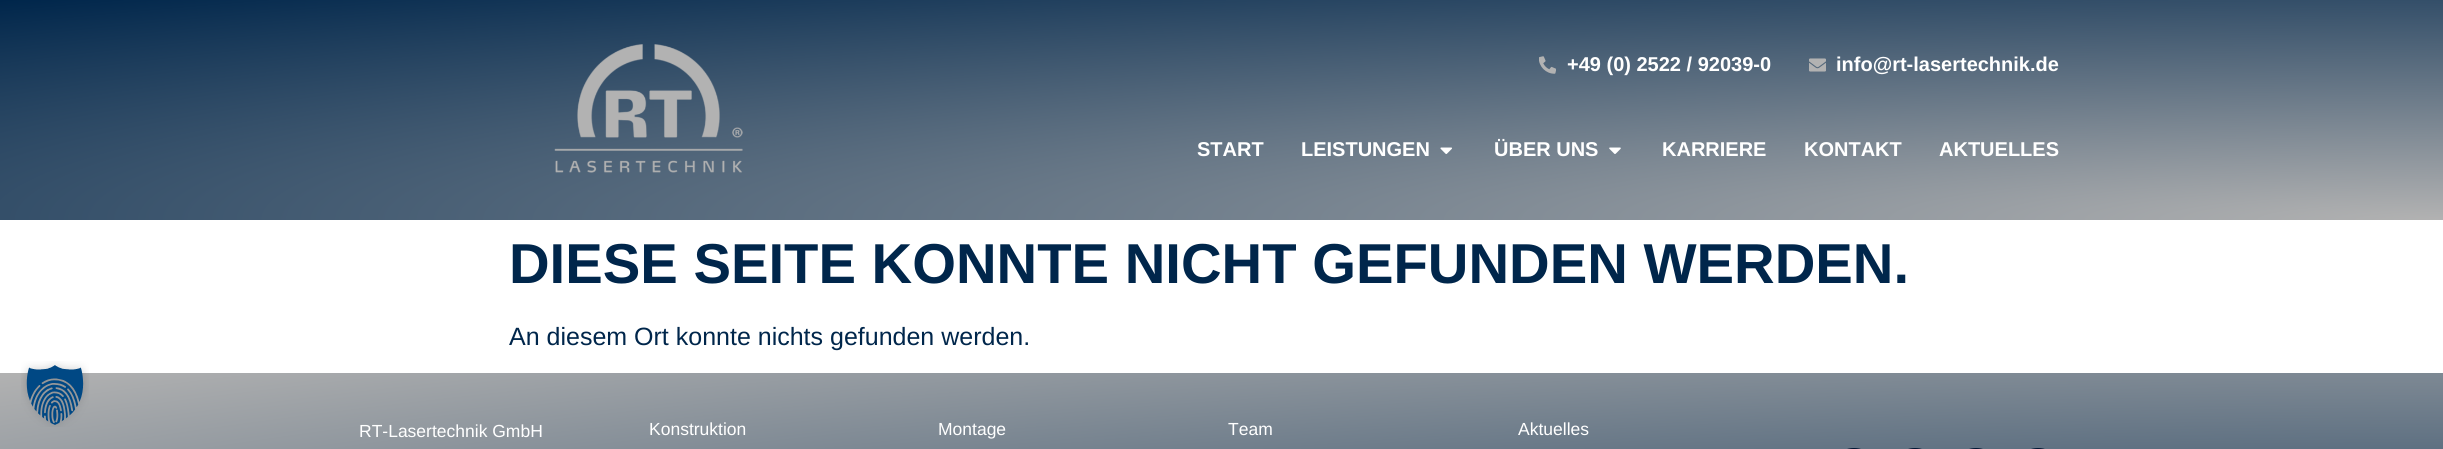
#include <cairo.h>
#include <math.h>
#include <stddef.h>


static void rgb(cairo_t *cr, int r, int g, int b)
{
	cairo_set_source_rgb(cr, r / 255.0, g / 255.0, b / 255.0);
}

static void face(cairo_t *cr, const char *family, double size, int italic, int bold)
{
	cairo_select_font_face(cr, family, italic ? CAIRO_FONT_SLANT_ITALIC : CAIRO_FONT_SLANT_NORMAL,
		bold ? CAIRO_FONT_WEIGHT_BOLD : CAIRO_FONT_WEIGHT_NORMAL);
	cairo_set_font_size(cr, size);
}

static void label(cairo_t *cr, double x, double y, const char *s)
{
	cairo_move_to(cr, x, y);
	cairo_show_text(cr, s);
}

static void rect(cairo_t *cr, double x, double y, double w, double h)
{
	cairo_rectangle(cr, x, y, w, h);
	cairo_fill(cr);
}

static void rrect(cairo_t *cr, double x, double y, double w, double h, double r)
{
	cairo_new_sub_path(cr);
	cairo_arc(cr, x + w - r, y + h - r, r, 0, M_PI / 2);
	cairo_arc(cr, x + r, y + h - r, r, M_PI / 2, M_PI);
	cairo_arc(cr, x + r, y + r, r, M_PI, 1.5 * M_PI);
	cairo_arc(cr, x + w - r, y + r, r, 1.5 * M_PI, 2 * M_PI);
	cairo_close_path(cr);
}

static void image(cairo_t *cr, const char *path, double x, double y, double w, double h)
{
	cairo_surface_t *image = cairo_image_surface_create_from_png(path);
	cairo_save(cr);
	cairo_set_source_surface(cr, image, x, y);
	cairo_rectangle(cr, x, y, w, h);
	cairo_fill(cr);
	cairo_restore(cr);
	cairo_surface_destroy(image);
}

static void draw(cairo_t *cr) {
	cairo_pattern_t *gradient;
	rgb(cr, 255, 255, 255);
	cairo_paint(cr);
	gradient = cairo_pattern_create_radial(0, 0, 0, 0, 0, 1);
	cairo_pattern_set_matrix(gradient, &(cairo_matrix_t){1.0 / 3456, 0, 0, 1.0 / 311, -1.0 * 2444 / 3456, -1.0 * 220 / 311});
	cairo_pattern_add_color_stop_rgba(gradient, 0, 0.698, 0.698, 0.698, 1);
	cairo_pattern_add_color_stop_rgba(gradient, 1, 0, 0.149, 0.294, 1);
	cairo_set_source(cr, gradient);
	cairo_pattern_destroy(gradient);
	rect(cr, 0, 0, 2443, 220);
	image(cr, "image0.png", 554, 44, 189, 129);
	image(cr, "image1.png", 1539, 56, 17, 18);
	face(cr, "Liberation Sans", 20, 0, 1);
	rgb(cr, 255, 255, 255);
	label(cr, 1567, 71, "+49 (0) 2522 / 92039-0");
	image(cr, "image2.png", 1809, 58, 17, 14);
	label(cr, 1836, 71, "info@rt-lasertechnik.de");
	label(cr, 1197, 156, "START");
	label(cr, 1301, 156, "LEISTUNGEN");
	image(cr, "image3.png", 1440, 147, 12, 7);
	label(cr, 1494, 156, "ÜBER UNS");
	image(cr, "image4.png", 1609, 147, 12, 7);
	label(cr, 1662, 156, "KARRIERE");
	label(cr, 1804, 156, "KONTAKT");
	label(cr, 1939, 156, "AKTUELLES");
	face(cr, "Liberation Sans", 56.25, 0, 1);
	rgb(cr, 0, 38, 75);
	label(cr, 509, 283, "DIESE SEITE KONNTE NICHT GEFUNDEN WERDEN.");
	face(cr, "Liberation Sans", 25, 0, 0);
	label(cr, 509, 345, "An diesem Ort konnte nichts gefunden werden.");
	gradient = cairo_pattern_create_radial(0, 0, 0, 0, 0, 1);
	cairo_pattern_set_matrix(gradient, &(cairo_matrix_t){1.0 / 3456, 0, 0, 1.0 / 437, -1.0 * 2444 / 3456, -1.0 * 681 / 437});
	cairo_pattern_add_color_stop_rgba(gradient, 0, 0, 0.149, 0.294, 1);
	cairo_pattern_add_color_stop_rgba(gradient, 1, 0.698, 0.698, 0.698, 1);
	cairo_set_source(cr, gradient);
	cairo_pattern_destroy(gradient);
	rect(cr, 0, 373, 2443, 76);
	image(cr, "image5.png", 21, 361, 68, 66);
	face(cr, "Liberation Sans", 17.5, 0, 0);
	rgb(cr, 255, 255, 255);
	label(cr, 359, 437, "RT-Lasertechnik GmbH");
	label(cr, 649, 435, "Konstruktion");
	label(cr, 938, 435, "Montage");
	label(cr, 1228, 435, "Team");
	label(cr, 1518, 435, "Aktuelles");
	rgb(cr, 0, 19, 49);
	rrect(cr, 1829, 448, 50, 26, 25);
	cairo_fill(cr);
	rrect(cr, 1890, 448, 50, 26, 25);
	cairo_fill(cr);
	rrect(cr, 1951, 448, 50, 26, 25);
	cairo_fill(cr);
	rrect(cr, 2013, 448, 50, 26, 25);
	cairo_fill(cr);
}

int main(void) {
	cairo_surface_t *surface = cairo_image_surface_create(CAIRO_FORMAT_RGB24, 2443, 449);
	cairo_t *cr = cairo_create(surface);
	cairo_font_options_t *options = cairo_font_options_create();
	cairo_font_options_set_hint_metrics(options, CAIRO_HINT_METRICS_OFF);
	cairo_font_options_set_hint_style(options, CAIRO_HINT_STYLE_NONE);
	cairo_set_font_options(cr, options);
	cairo_set_miter_limit(cr, 4);
	draw(cr);
	cairo_surface_write_to_png(surface, "render.png");
	cairo_font_options_destroy(options);
	cairo_destroy(cr);
	cairo_surface_destroy(surface);
	return 0;
}
